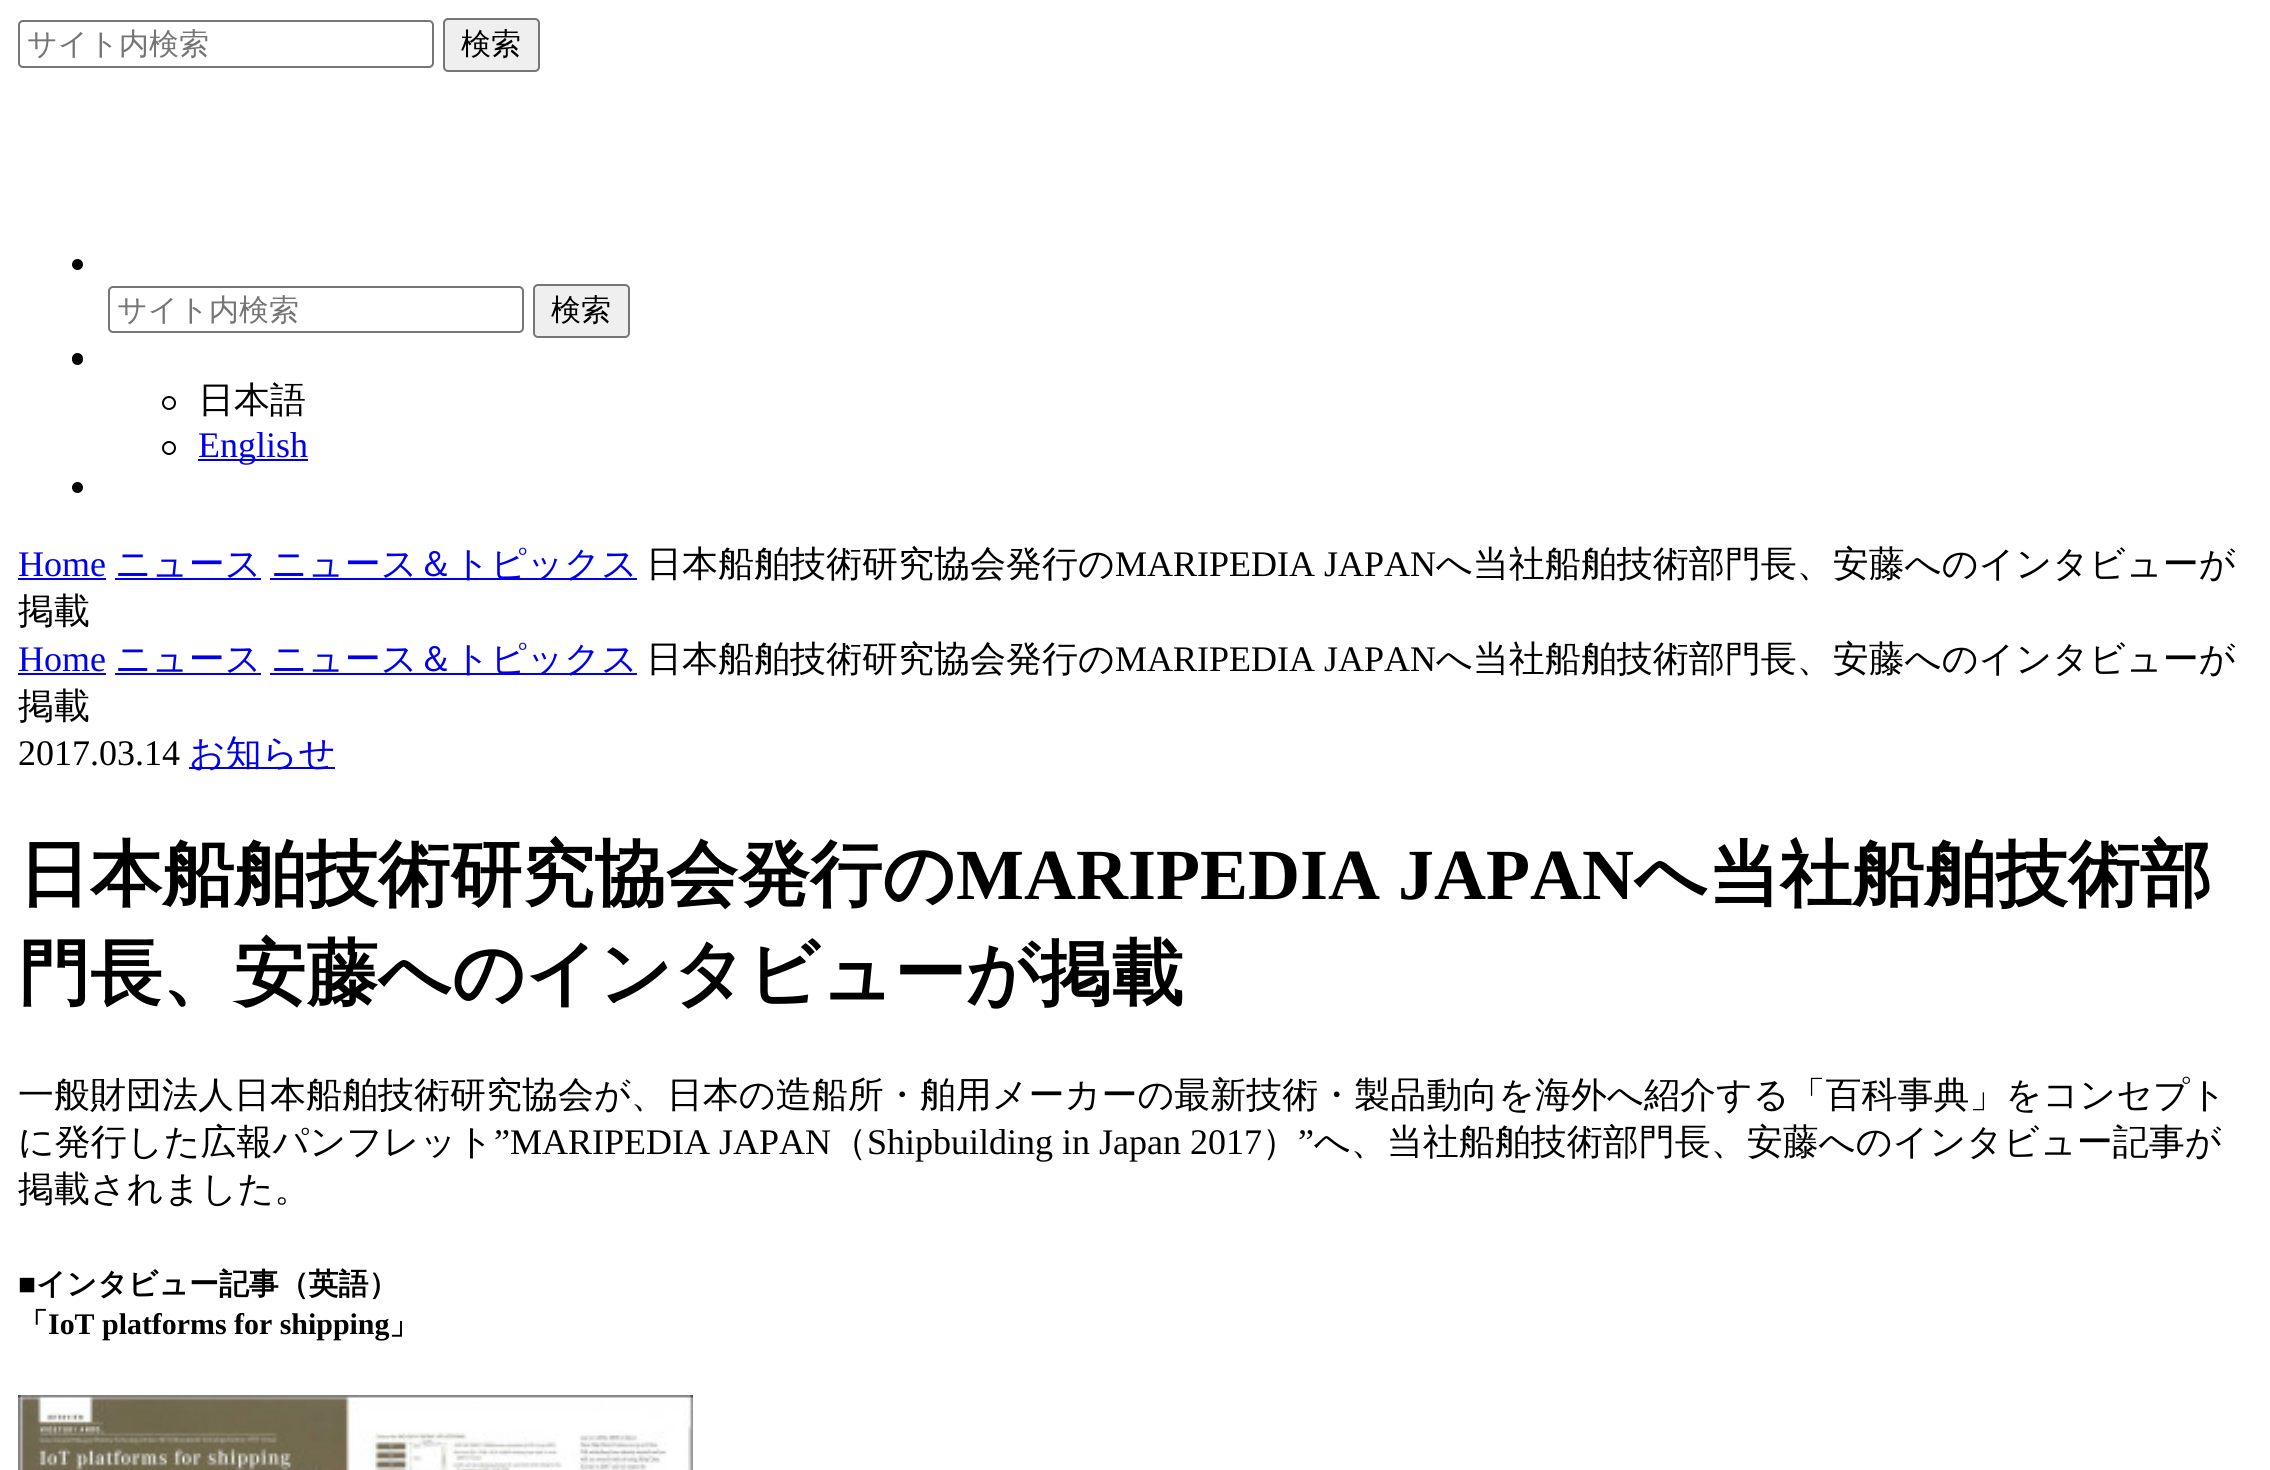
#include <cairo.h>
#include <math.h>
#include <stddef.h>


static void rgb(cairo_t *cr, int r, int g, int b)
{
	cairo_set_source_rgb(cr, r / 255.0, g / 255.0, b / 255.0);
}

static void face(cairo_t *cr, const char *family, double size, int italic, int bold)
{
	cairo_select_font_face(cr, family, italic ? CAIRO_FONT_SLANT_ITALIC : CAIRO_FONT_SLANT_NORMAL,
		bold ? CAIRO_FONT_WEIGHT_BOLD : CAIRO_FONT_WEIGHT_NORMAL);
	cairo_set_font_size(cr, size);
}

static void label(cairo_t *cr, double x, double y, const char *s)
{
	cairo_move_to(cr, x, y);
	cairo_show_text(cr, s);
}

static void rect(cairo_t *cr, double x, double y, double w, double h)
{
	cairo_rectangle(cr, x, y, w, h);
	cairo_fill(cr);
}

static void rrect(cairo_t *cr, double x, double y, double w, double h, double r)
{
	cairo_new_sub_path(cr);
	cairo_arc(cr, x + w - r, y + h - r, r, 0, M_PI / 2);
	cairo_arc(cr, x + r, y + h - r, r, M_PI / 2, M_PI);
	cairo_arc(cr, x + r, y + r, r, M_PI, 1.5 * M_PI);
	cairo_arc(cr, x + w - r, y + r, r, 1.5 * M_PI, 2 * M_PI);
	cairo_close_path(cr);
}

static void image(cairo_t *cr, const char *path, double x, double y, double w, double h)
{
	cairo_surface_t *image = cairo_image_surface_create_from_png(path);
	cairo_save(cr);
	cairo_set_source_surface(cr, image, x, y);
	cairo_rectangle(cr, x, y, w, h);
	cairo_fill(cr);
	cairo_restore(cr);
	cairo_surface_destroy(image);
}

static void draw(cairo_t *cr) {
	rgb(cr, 255, 255, 255);
	cairo_paint(cr);
	rrect(cr, 19, 21, 414, 46, 4);
	rgb(cr, 118, 118, 118);
	cairo_stroke(cr);
	face(cr, "WenQuanYi Zen Hei Medium", 30, 0, 0);
	rgb(cr, 117, 117, 117);
	label(cr, 27, 54, "サイト内検索");
	rgb(cr, 239, 239, 239);
	rrect(cr, 444, 19, 95, 52, 4);
	cairo_fill_preserve(cr);
	rgb(cr, 118, 118, 118);
	cairo_stroke(cr);
	rgb(cr, 0, 0, 0);
	label(cr, 461, 54, "検索");
	cairo_new_path(cr);
	cairo_arc(cr, 77.5, 264.5, 5.5, 0, 2 * M_PI);
	cairo_fill(cr);
	rrect(cr, 109, 287, 414, 45, 4);
	rgb(cr, 118, 118, 118);
	cairo_stroke(cr);
	rgb(cr, 117, 117, 117);
	label(cr, 117, 320, "サイト内検索");
	rgb(cr, 239, 239, 239);
	rrect(cr, 534, 285, 95, 52, 4);
	cairo_fill_preserve(cr);
	rgb(cr, 118, 118, 118);
	cairo_stroke(cr);
	rgb(cr, 0, 0, 0);
	label(cr, 551, 320, "検索");
	rrect(cr, 72, 353, 11, 12, 5.5);
	cairo_fill(cr);
	cairo_arc(cr, 169, 403, 6, 0, 2 * M_PI);
	cairo_stroke(cr);
	face(cr, "WenQuanYi Zen Hei Medium", 36, 0, 0);
	label(cr, 198, 412, "日本語");
	cairo_new_path(cr);
	cairo_arc(cr, 169, 448, 6, 0, 2 * M_PI);
	cairo_stroke(cr);
	rgb(cr, 0, 0, 238);
	rect(cr, 198, 459, 110, 2);
	face(cr, "Liberation Serif", 36, 0, 0);
	label(cr, 198, 457, "English");
	rgb(cr, 0, 0, 0);
	cairo_new_path(cr);
	cairo_arc(cr, 77.5, 487.5, 5.5, 0, 2 * M_PI);
	cairo_fill(cr);
	rgb(cr, 0, 0, 238);
	label(cr, 18, 576, "Home");
	rect(cr, 18, 578, 88, 2);
	face(cr, "WenQuanYi Zen Hei Medium", 36, 0, 0);
	label(cr, 115, 576, "ニュース");
	rect(cr, 115, 578, 146, 2);
	rect(cr, 270, 578, 367, 2);
	label(cr, 271, 576, "ニュース＆トピックス");
	rgb(cr, 0, 0, 0);
	label(cr, 646, 576, "日本船舶技術研究協会発行の");
	face(cr, "Liberation Serif", 36, 0, 0);
	label(cr, 1115, 576, "MARIPEDIA JAPAN");
	face(cr, "WenQuanYi Zen Hei Medium", 36, 0, 0);
	label(cr, 1436, 576, "へ当社船舶技術部門長、安藤へのインタビューが");
	label(cr, 18, 623, "掲載");
	face(cr, "Liberation Serif", 36, 0, 0);
	rgb(cr, 0, 0, 238);
	label(cr, 18, 671, "Home");
	rect(cr, 18, 673, 88, 2);
	face(cr, "WenQuanYi Zen Hei Medium", 36, 0, 0);
	label(cr, 115, 671, "ニュース");
	rect(cr, 115, 673, 146, 2);
	rect(cr, 270, 673, 367, 2);
	label(cr, 271, 671, "ニュース＆トピックス");
	rgb(cr, 0, 0, 0);
	label(cr, 646, 671, "日本船舶技術研究協会発行の");
	face(cr, "Liberation Serif", 36, 0, 0);
	label(cr, 1115, 671, "MARIPEDIA JAPAN");
	face(cr, "WenQuanYi Zen Hei Medium", 36, 0, 0);
	label(cr, 1436, 671, "へ当社船舶技術部門長、安藤へのインタビューが");
	label(cr, 18, 718, "掲載");
	face(cr, "Liberation Serif", 36, 0, 0);
	label(cr, 18, 765, "2017.03.14");
	rgb(cr, 0, 0, 238);
	rect(cr, 189, 767, 146, 2);
	face(cr, "WenQuanYi Zen Hei Medium", 36, 0, 0);
	label(cr, 189, 765, "お知らせ");
	face(cr, "WenQuanYi Zen Hei", 72, 0, 1);
	rgb(cr, 0, 0, 0);
	label(cr, 18, 899, "日本船舶技術研究協会発行の");
	face(cr, "Liberation Serif", 72, 0, 1);
	label(cr, 956, 899, "MARIPEDIA JAPAN");
	face(cr, "WenQuanYi Zen Hei", 72, 0, 1);
	label(cr, 1634, 899, "へ当社船舶技術部");
	label(cr, 18, 998, "門長、安藤へのインタビューが掲載");
	face(cr, "WenQuanYi Zen Hei Medium", 36, 0, 0);
	label(cr, 18, 1107, "一般財団法人日本船舶技術研究協会が、日本の造船所・舶用メーカーの最新技術・製品動向を海外へ紹介する「百科事典」をコンセプト");
	label(cr, 18, 1154, "に発行した広報パンフレット");
	face(cr, "Liberation Serif", 36, 0, 0);
	label(cr, 494, 1154, "”MARIPEDIA JAPAN");
	face(cr, "WenQuanYi Zen Hei Medium", 36, 0, 0);
	label(cr, 831, 1154, "（");
	face(cr, "Liberation Serif", 36, 0, 0);
	label(cr, 867, 1154, "Shipbuilding in Japan 2017");
	face(cr, "WenQuanYi Zen Hei Medium", 36, 0, 0);
	label(cr, 1262, 1154, "）");
	face(cr, "Liberation Serif", 36, 0, 0);
	label(cr, 1298, 1154, "”");
	face(cr, "WenQuanYi Zen Hei Medium", 36, 0, 0);
	label(cr, 1314, 1154, "へ、当社船舶技術部門長、安藤へのインタビュー記事が");
	label(cr, 18, 1201, "掲載されました。");
	face(cr, "Liberation Serif", 29.9, 0, 1);
	label(cr, 18, 1294, "■");
	face(cr, "WenQuanYi Zen Hei", 29.9, 0, 1);
	label(cr, 36, 1294, "インタビュー記事（英語）");
	label(cr, 18, 1334, "「");
	face(cr, "Liberation Serif", 29.9, 0, 1);
	label(cr, 48, 1334, "IoT platforms for shipping");
	face(cr, "WenQuanYi Zen Hei", 29.9, 0, 1);
	label(cr, 389, 1334, "」");
	image(cr, "image0.png", 18, 1395, 675, 75);
}

int main(void) {
	cairo_surface_t *surface = cairo_image_surface_create(CAIRO_FORMAT_RGB24, 2270, 1470);
	cairo_t *cr = cairo_create(surface);
	cairo_font_options_t *options = cairo_font_options_create();
	cairo_font_options_set_hint_metrics(options, CAIRO_HINT_METRICS_OFF);
	cairo_font_options_set_hint_style(options, CAIRO_HINT_STYLE_NONE);
	cairo_set_font_options(cr, options);
	cairo_set_miter_limit(cr, 4);
	draw(cr);
	cairo_surface_write_to_png(surface, "render.png");
	cairo_font_options_destroy(options);
	cairo_destroy(cr);
	cairo_surface_destroy(surface);
	return 0;
}
